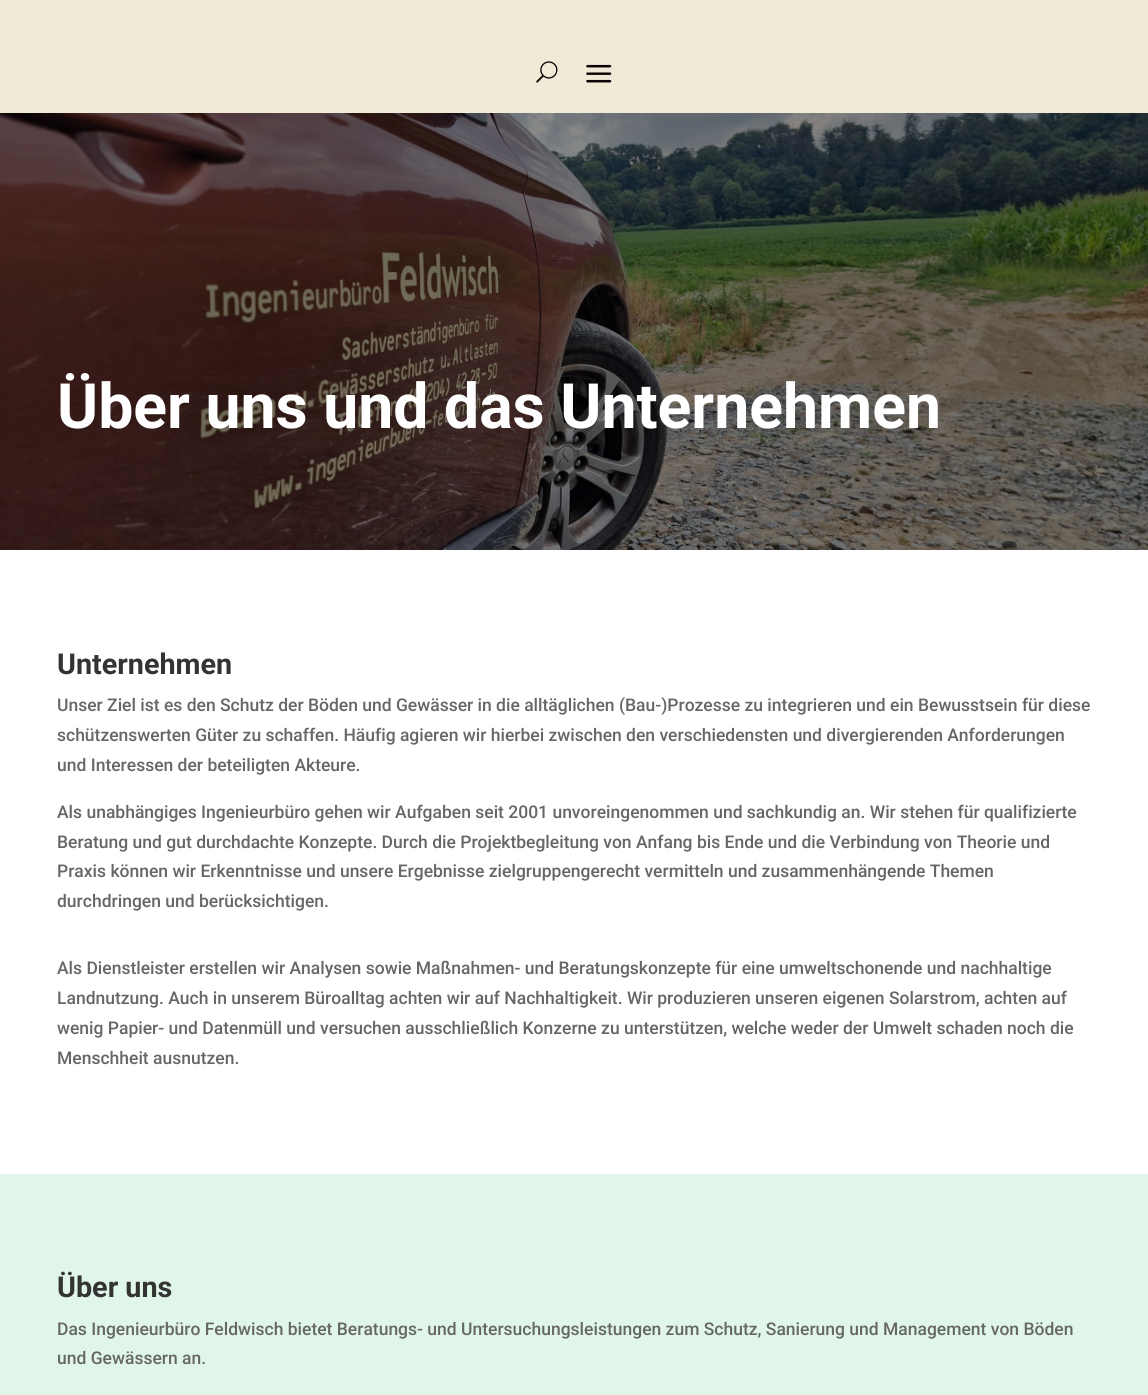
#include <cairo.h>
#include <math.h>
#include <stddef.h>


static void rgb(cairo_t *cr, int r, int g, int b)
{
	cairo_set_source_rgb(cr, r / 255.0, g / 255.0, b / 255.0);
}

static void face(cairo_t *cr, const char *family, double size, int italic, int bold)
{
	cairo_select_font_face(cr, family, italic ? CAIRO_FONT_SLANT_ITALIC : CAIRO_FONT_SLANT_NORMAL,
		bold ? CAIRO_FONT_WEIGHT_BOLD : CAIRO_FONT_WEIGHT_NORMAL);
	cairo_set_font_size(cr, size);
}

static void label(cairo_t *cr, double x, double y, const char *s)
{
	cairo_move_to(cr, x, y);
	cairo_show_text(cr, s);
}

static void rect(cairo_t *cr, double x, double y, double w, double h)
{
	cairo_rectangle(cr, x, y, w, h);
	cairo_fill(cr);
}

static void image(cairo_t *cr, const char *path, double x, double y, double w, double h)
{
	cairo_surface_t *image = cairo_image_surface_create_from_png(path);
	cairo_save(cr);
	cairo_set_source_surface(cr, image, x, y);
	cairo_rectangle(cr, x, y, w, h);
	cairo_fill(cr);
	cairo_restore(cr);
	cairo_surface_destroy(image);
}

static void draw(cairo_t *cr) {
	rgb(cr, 255, 255, 255);
	cairo_paint(cr);
	rgb(cr, 240, 235, 215);
	rect(cr, 0, 0, 1148, 113);
	image(cr, "image0.png", 536, 61, 22, 22);
	image(cr, "image1.png", 586, 64, 26, 19);
	image(cr, "image2.png", 0, 113, 1148, 437);
	face(cr, "Roboto", 62.5, 0, 1);
	rgb(cr, 255, 255, 255);
	label(cr, 57, 428, "Über uns und das Unternehmen");
	face(cr, "Roboto", 28.75, 0, 1);
	rgb(cr, 51, 51, 51);
	label(cr, 57, 674, "Unternehmen");
	face(cr, "Roboto Medium", 17.5, 0, 0);
	rgb(cr, 102, 102, 102);
	label(cr, 57, 711, "Unser Ziel ist es den Schutz der Böden und Gewässer in die alltäglichen (Bau-)Prozesse zu integrieren und ein Bewusstsein für diese");
	label(cr, 57, 741, "schützenswerten Güter zu schaffen. Häufig agieren wir hierbei zwischen den verschiedensten und divergierenden Anforderungen");
	label(cr, 57, 771, "und Interessen der beteiligten Akteure.");
	label(cr, 57, 818, "Als unabhängiges Ingenieurbüro gehen wir Aufgaben seit 2001 unvoreingenommen und sachkundig an. Wir stehen für qualifizierte");
	label(cr, 57, 848, "Beratung und gut durchdachte Konzepte. Durch die Projektbegleitung von Anfang bis Ende und die Verbindung von Theorie und");
	label(cr, 57, 877, "Praxis können wir Erkenntnisse und unsere Ergebnisse zielgruppengerecht vermitteln und zusammenhängende Themen");
	label(cr, 57, 907, "durchdringen und berücksichtigen.");
	label(cr, 57, 974, "Als Dienstleister erstellen wir Analysen sowie Maßnahmen- und Beratungskonzepte für eine umweltschonende und nachhaltige");
	label(cr, 57, 1004, "Landnutzung. Auch in unserem Büroalltag achten wir auf Nachhaltigkeit. Wir produzieren unseren eigenen Solarstrom, achten auf");
	label(cr, 57, 1034, "wenig Papier- und Datenmüll und versuchen ausschließlich Konzerne zu unterstützen, welche weder der Umwelt schaden noch die");
	label(cr, 57, 1064, "Menschheit ausnutzen.");
	rgb(cr, 224, 246, 233);
	rect(cr, 0, 1174, 1148, 221);
	face(cr, "Roboto", 28.75, 0, 1);
	rgb(cr, 51, 51, 51);
	label(cr, 57, 1297, "Über uns");
	face(cr, "Roboto Medium", 17.5, 0, 0);
	rgb(cr, 102, 102, 102);
	label(cr, 57, 1335, "Das Ingenieurbüro Feldwisch bietet Beratungs- und Untersuchungsleistungen zum Schutz, Sanierung und Management von Böden");
	label(cr, 57, 1364, "und Gewässern an.");
}

int main(void) {
	cairo_surface_t *surface = cairo_image_surface_create(CAIRO_FORMAT_RGB24, 1148, 1395);
	cairo_t *cr = cairo_create(surface);
	cairo_font_options_t *options = cairo_font_options_create();
	cairo_font_options_set_hint_metrics(options, CAIRO_HINT_METRICS_OFF);
	cairo_font_options_set_hint_style(options, CAIRO_HINT_STYLE_NONE);
	cairo_set_font_options(cr, options);
	cairo_set_miter_limit(cr, 4);
	draw(cr);
	cairo_surface_write_to_png(surface, "render.png");
	cairo_font_options_destroy(options);
	cairo_destroy(cr);
	cairo_surface_destroy(surface);
	return 0;
}
